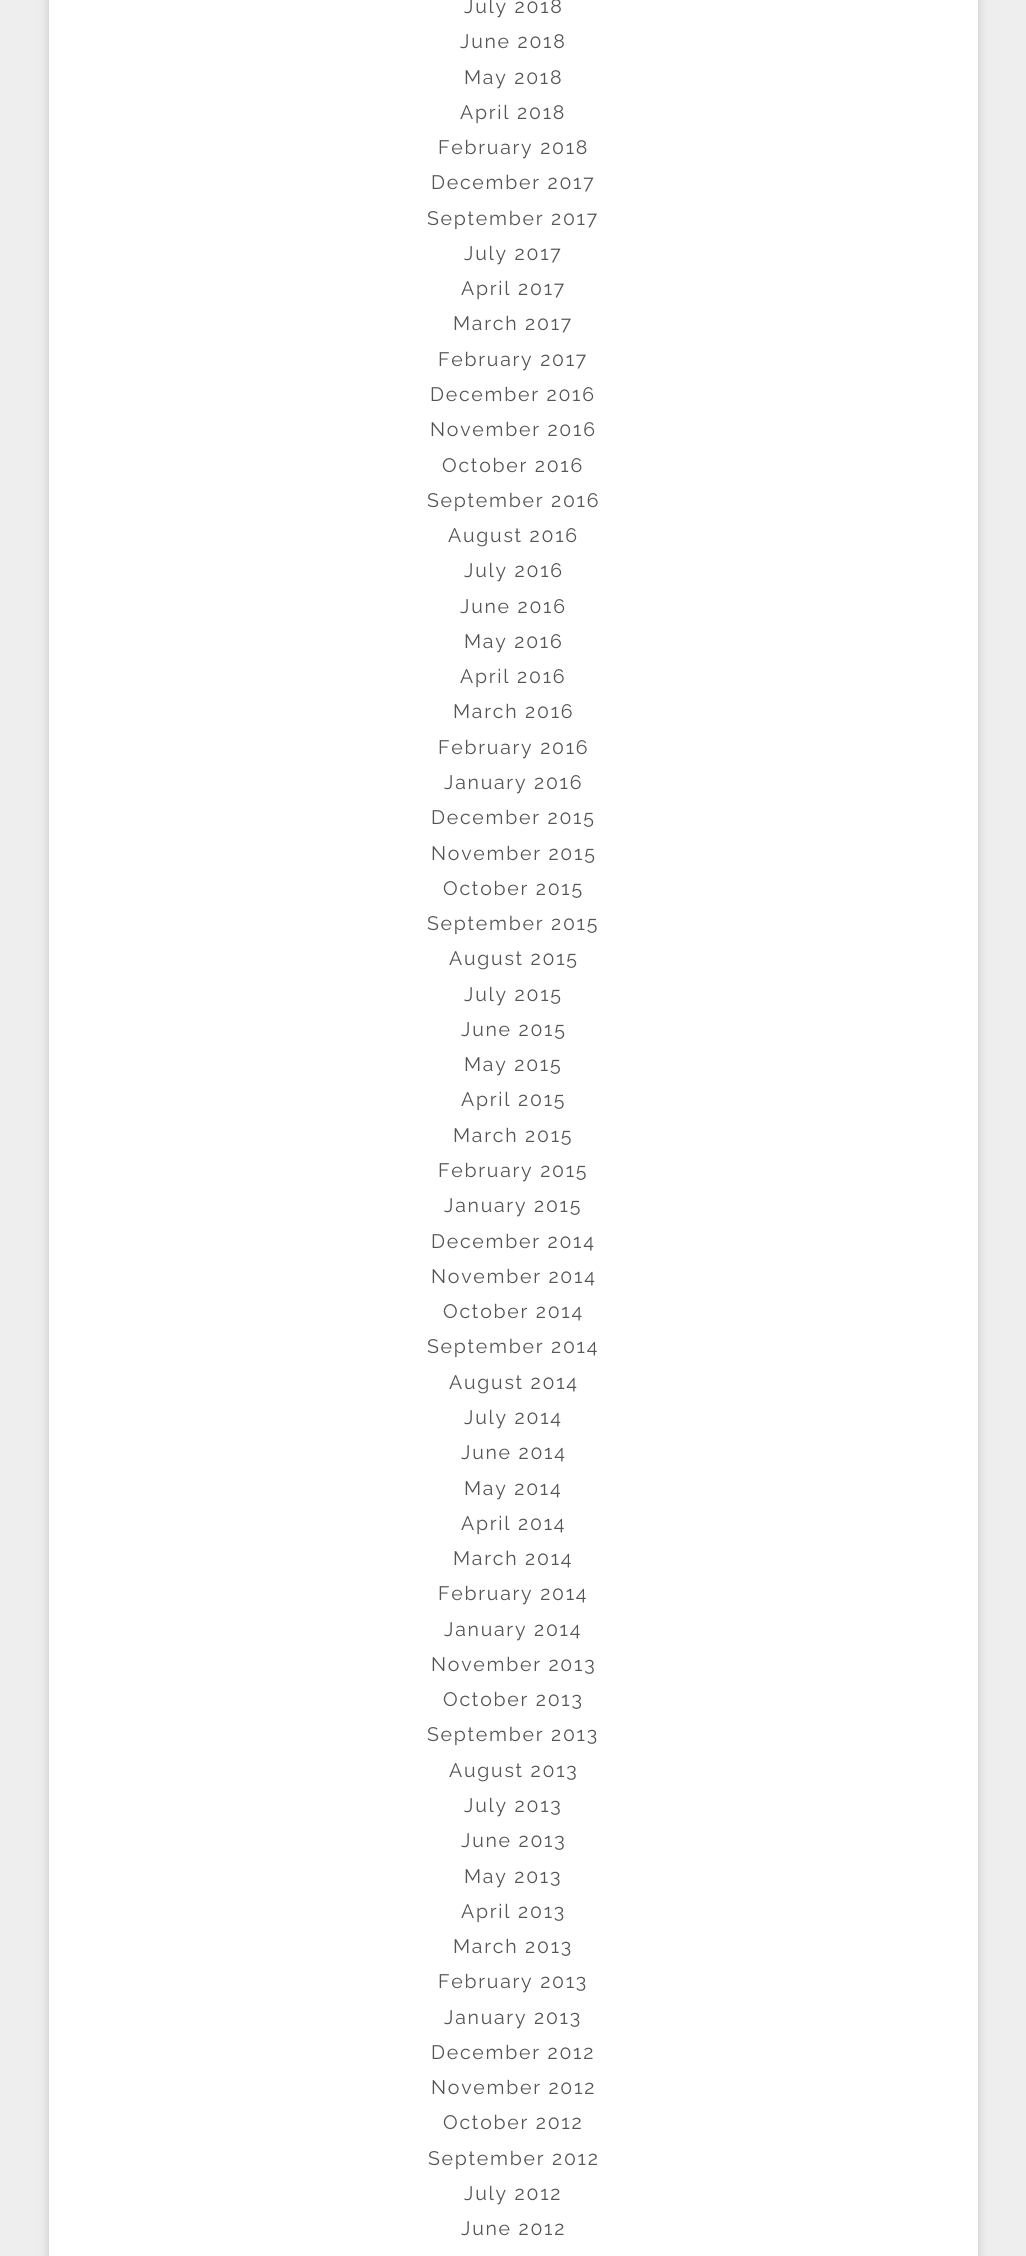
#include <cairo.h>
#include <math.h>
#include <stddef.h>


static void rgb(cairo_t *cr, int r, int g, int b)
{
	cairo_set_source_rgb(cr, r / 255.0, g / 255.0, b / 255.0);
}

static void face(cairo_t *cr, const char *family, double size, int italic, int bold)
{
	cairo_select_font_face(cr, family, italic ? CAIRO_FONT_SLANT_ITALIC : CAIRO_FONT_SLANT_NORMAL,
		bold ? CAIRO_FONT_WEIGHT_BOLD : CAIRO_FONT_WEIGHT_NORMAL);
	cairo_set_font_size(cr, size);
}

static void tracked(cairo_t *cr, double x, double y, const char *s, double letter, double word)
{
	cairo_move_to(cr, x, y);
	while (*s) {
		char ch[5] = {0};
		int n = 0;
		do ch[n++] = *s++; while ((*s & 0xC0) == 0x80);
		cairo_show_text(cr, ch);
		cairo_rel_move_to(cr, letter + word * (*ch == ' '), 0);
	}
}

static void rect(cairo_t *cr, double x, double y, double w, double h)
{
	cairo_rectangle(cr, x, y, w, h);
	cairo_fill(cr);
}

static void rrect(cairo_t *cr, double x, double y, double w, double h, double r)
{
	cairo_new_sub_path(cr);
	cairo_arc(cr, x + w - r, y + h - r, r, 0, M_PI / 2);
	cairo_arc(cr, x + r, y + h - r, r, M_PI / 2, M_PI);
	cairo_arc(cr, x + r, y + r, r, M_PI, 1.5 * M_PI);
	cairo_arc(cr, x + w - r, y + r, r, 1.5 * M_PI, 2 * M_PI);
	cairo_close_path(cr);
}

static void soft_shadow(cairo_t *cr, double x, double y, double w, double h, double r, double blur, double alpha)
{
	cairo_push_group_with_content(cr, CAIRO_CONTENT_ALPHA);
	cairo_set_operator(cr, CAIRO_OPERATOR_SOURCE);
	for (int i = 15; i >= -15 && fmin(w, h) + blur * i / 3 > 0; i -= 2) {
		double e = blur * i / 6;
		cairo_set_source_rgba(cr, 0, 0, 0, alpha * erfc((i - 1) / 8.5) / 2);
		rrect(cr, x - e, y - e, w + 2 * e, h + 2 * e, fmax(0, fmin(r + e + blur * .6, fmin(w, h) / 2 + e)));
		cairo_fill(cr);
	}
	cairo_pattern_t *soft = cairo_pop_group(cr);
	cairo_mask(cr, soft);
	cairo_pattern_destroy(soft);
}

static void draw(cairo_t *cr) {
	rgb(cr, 238, 238, 238);
	cairo_paint(cr);
	rgb(cr, 100, 100, 100);
	soft_shadow(cr, 49, -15, 929, 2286, 0, 5, 0.3);
	rgb(cr, 255, 255, 255);
	rect(cr, 49, 0, 929, 2256);
	face(cr, "Raleway", 19.5, 0, 0);
	rgb(cr, 85, 85, 85);
	tracked(cr, 464, 13, "July 2018", 1.75, 0);
	tracked(cr, 460, 48, "June 2018", 1.75, 0);
	tracked(cr, 464, 84, "May 2018", 1.75, 0);
	tracked(cr, 460, 119, "April 2018", 1.75, 0);
	tracked(cr, 438, 154, "February 2018", 1.75, 0);
	tracked(cr, 431, 189, "December 2017", 1.75, 0);
	tracked(cr, 427, 225, "September 2017", 1.75, 0);
	tracked(cr, 464, 260, "July 2017", 1.75, 0);
	tracked(cr, 461, 295, "April 2017", 1.75, 0);
	tracked(cr, 453, 330, "March 2017", 1.75, 0);
	tracked(cr, 438, 366, "February 2017", 1.75, 0);
	tracked(cr, 430, 401, "December 2016", 1.75, 0);
	tracked(cr, 430, 436, "November 2016", 1.75, 0);
	tracked(cr, 442, 472, "October 2016", 1.75, 0);
	tracked(cr, 427, 507, "September 2016", 1.75, 0);
	tracked(cr, 448, 542, "August 2016", 1.75, 0);
	tracked(cr, 464, 577, "July 2016", 1.75, 0);
	tracked(cr, 460, 613, "June 2016", 1.75, 0);
	tracked(cr, 464, 648, "May 2016", 1.75, 0);
	tracked(cr, 460, 683, "April 2016", 1.75, 0);
	tracked(cr, 453, 718, "March 2016", 1.75, 0);
	tracked(cr, 438, 754, "February 2016", 1.75, 0);
	tracked(cr, 444, 789, "January 2016", 1.75, 0);
	tracked(cr, 431, 824, "December 2015", 1.75, 0);
	tracked(cr, 431, 860, "November 2015", 1.75, 0);
	tracked(cr, 443, 895, "October 2015", 1.75, 0);
	tracked(cr, 427, 930, "September 2015", 1.75, 0);
	tracked(cr, 449, 965, "August 2015", 1.75, 0);
	tracked(cr, 464, 1001, "July 2015", 1.75, 0);
	tracked(cr, 461, 1036, "June 2015", 1.75, 0);
	tracked(cr, 464, 1071, "May 2015", 1.75, 0);
	tracked(cr, 461, 1106, "April 2015", 1.75, 0);
	tracked(cr, 453, 1142, "March 2015", 1.75, 0);
	tracked(cr, 438, 1177, "February 2015", 1.75, 0);
	tracked(cr, 444, 1212, "January 2015", 1.75, 0);
	tracked(cr, 431, 1248, "December 2014", 1.75, 0);
	tracked(cr, 431, 1283, "November 2014", 1.75, 0);
	tracked(cr, 443, 1318, "October 2014", 1.75, 0);
	tracked(cr, 427, 1353, "September 2014", 1.75, 0);
	tracked(cr, 449, 1389, "August 2014", 1.75, 0);
	tracked(cr, 464, 1424, "July 2014", 1.75, 0);
	tracked(cr, 461, 1459, "June 2014", 1.75, 0);
	tracked(cr, 464, 1495, "May 2014", 1.75, 0);
	tracked(cr, 461, 1530, "April 2014", 1.75, 0);
	tracked(cr, 453, 1565, "March 2014", 1.75, 0);
	tracked(cr, 438, 1600, "February 2014", 1.75, 0);
	tracked(cr, 444, 1636, "January 2014", 1.75, 0);
	tracked(cr, 431, 1671, "November 2013", 1.75, 0);
	tracked(cr, 443, 1706, "October 2013", 1.75, 0);
	tracked(cr, 427, 1741, "September 2013", 1.75, 0);
	tracked(cr, 449, 1777, "August 2013", 1.75, 0);
	tracked(cr, 464, 1812, "July 2013", 1.75, 0);
	tracked(cr, 461, 1847, "June 2013", 1.75, 0);
	tracked(cr, 464, 1883, "May 2013", 1.75, 0);
	tracked(cr, 461, 1918, "April 2013", 1.75, 0);
	tracked(cr, 453, 1953, "March 2013", 1.75, 0);
	tracked(cr, 438, 1988, "February 2013", 1.75, 0);
	tracked(cr, 444, 2024, "January 2013", 1.75, 0);
	tracked(cr, 431, 2059, "December 2012", 1.75, 0);
	tracked(cr, 431, 2094, "November 2012", 1.75, 0);
	tracked(cr, 443, 2129, "October 2012", 1.75, 0);
	tracked(cr, 428, 2165, "September 2012", 1.75, 0);
	tracked(cr, 464, 2200, "July 2012", 1.75, 0);
	tracked(cr, 461, 2235, "June 2012", 1.75, 0);
}

int main(void) {
	cairo_surface_t *surface = cairo_image_surface_create(CAIRO_FORMAT_RGB24, 1026, 2256);
	cairo_t *cr = cairo_create(surface);
	cairo_font_options_t *options = cairo_font_options_create();
	cairo_font_options_set_hint_metrics(options, CAIRO_HINT_METRICS_OFF);
	cairo_font_options_set_hint_style(options, CAIRO_HINT_STYLE_NONE);
	cairo_set_font_options(cr, options);
	cairo_set_miter_limit(cr, 4);
	draw(cr);
	cairo_surface_write_to_png(surface, "render.png");
	cairo_font_options_destroy(options);
	cairo_destroy(cr);
	cairo_surface_destroy(surface);
	return 0;
}
